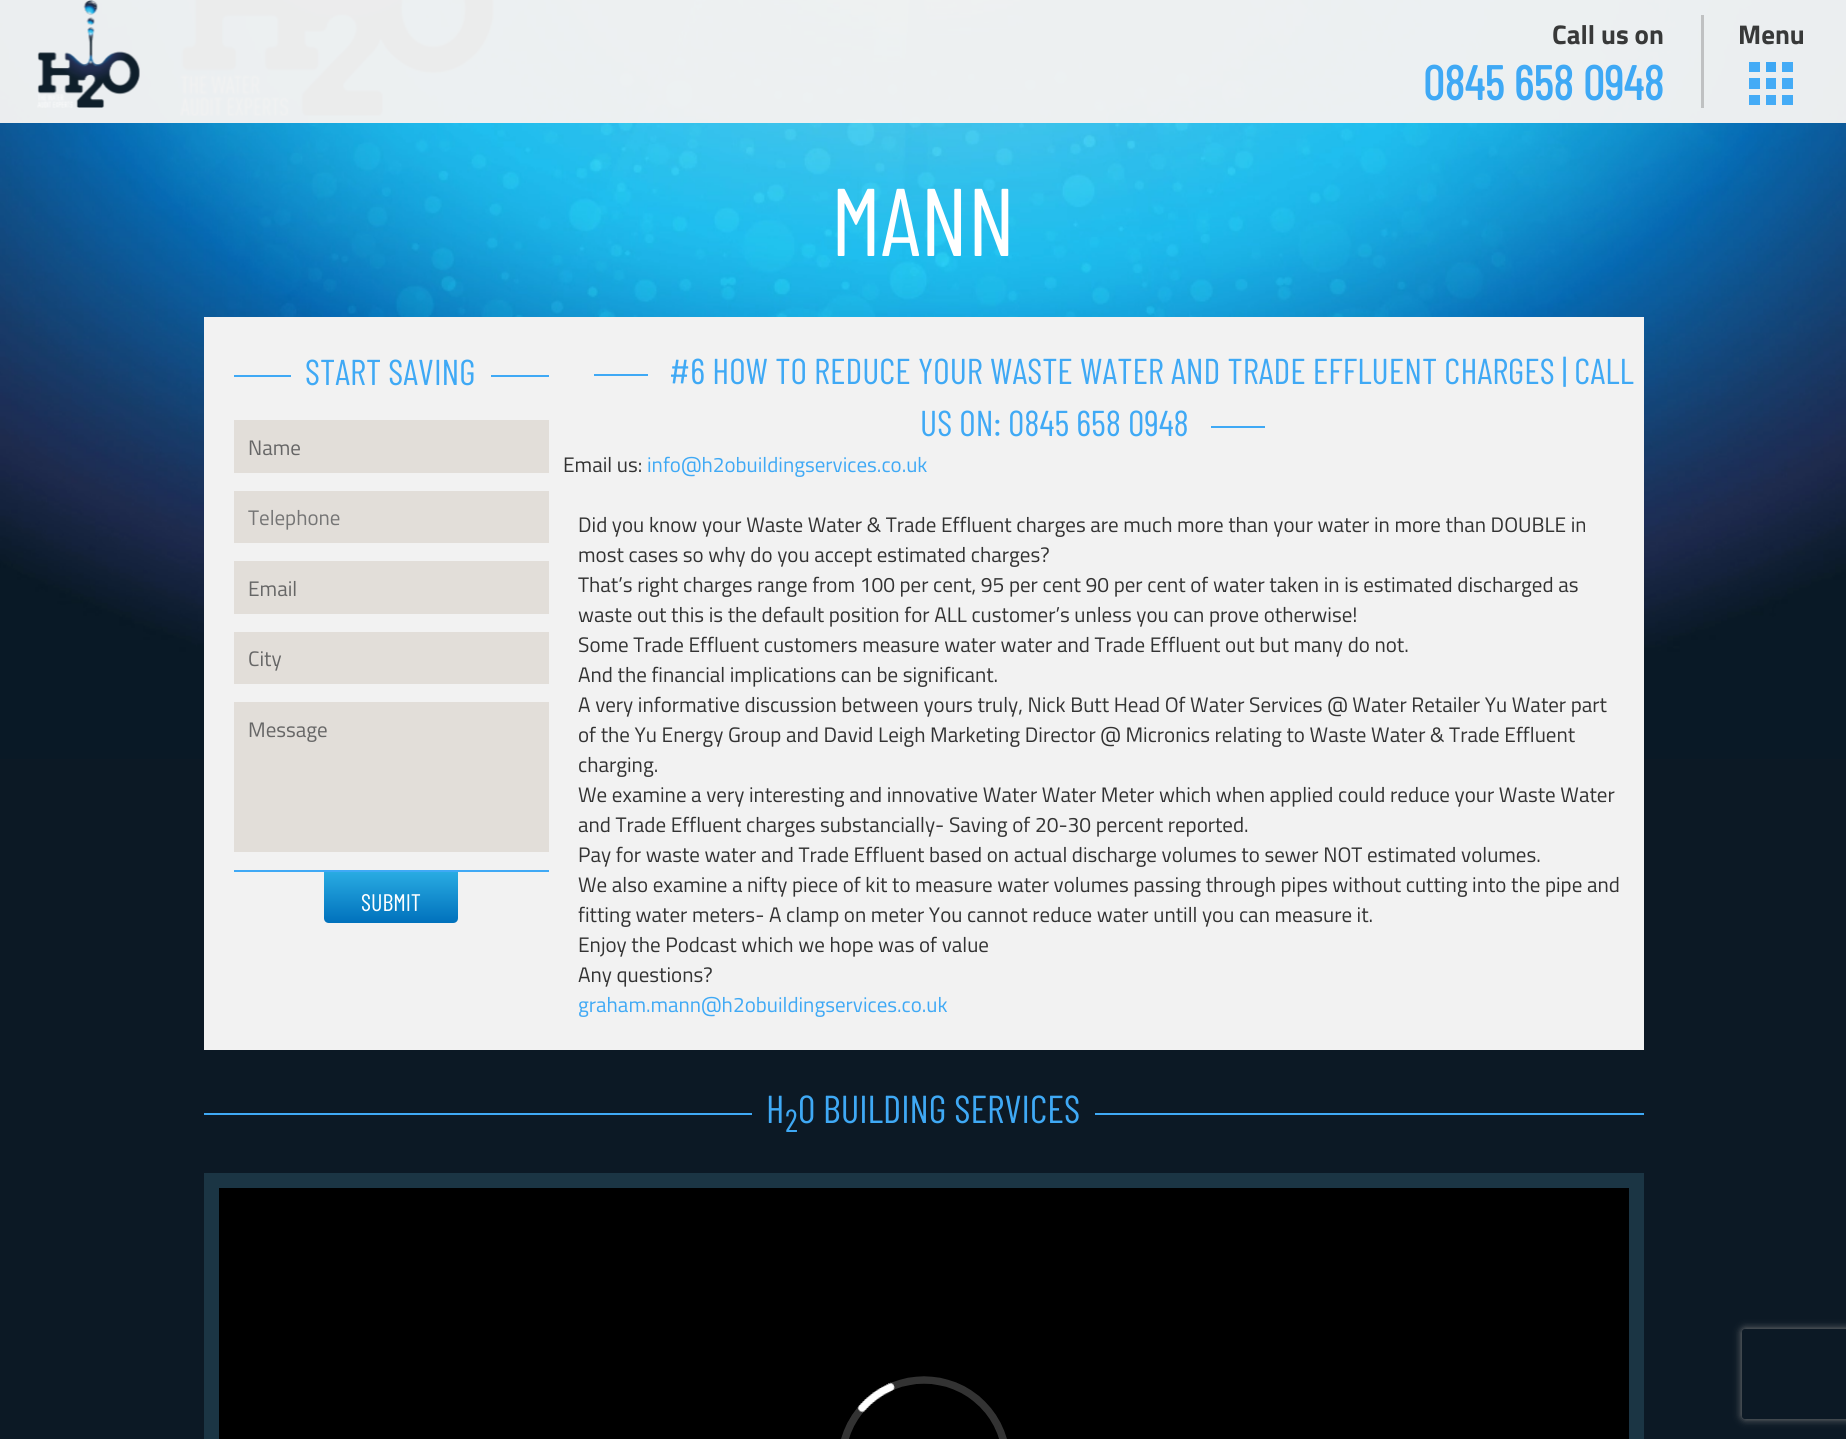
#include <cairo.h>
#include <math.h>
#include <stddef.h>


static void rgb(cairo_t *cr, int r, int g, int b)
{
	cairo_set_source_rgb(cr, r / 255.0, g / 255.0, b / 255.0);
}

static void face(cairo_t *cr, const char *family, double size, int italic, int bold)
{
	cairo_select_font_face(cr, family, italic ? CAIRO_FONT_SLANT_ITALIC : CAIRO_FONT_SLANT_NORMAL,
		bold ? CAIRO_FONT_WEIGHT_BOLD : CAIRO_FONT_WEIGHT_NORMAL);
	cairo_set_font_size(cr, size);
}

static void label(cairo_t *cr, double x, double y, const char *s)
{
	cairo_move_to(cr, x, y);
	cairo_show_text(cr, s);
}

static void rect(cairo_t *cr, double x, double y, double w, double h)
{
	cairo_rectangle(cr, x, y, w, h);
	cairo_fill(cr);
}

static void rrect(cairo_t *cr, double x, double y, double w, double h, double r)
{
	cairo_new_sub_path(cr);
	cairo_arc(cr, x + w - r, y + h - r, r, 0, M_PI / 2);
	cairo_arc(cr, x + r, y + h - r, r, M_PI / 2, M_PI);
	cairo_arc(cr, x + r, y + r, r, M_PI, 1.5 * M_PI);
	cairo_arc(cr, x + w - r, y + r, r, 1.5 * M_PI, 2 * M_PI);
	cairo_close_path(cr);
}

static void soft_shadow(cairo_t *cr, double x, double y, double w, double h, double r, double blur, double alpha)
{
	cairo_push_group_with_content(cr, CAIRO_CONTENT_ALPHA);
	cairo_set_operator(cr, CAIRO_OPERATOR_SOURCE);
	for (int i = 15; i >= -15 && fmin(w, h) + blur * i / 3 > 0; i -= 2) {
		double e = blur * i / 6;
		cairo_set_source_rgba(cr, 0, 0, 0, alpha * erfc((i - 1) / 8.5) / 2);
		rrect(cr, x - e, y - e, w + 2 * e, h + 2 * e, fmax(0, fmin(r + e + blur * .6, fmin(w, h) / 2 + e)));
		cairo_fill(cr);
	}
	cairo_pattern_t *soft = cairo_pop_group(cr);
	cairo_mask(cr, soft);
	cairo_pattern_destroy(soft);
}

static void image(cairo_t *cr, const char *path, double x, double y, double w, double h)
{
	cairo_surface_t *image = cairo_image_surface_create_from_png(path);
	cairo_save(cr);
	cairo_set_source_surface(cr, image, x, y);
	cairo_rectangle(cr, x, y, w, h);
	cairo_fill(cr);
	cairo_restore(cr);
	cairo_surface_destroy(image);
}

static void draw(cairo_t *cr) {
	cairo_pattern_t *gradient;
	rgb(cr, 12, 25, 37);
	cairo_paint(cr);
	image(cr, "image0.png", 0, 0, 1846, 759);
	image(cr, "image1.png", 180, 0, 314, 116);
	cairo_set_source_rgba(cr, 0.949, 0.949, 0.949, 0.97);
	rect(cr, 0, 0, 1846, 123);
	image(cr, "image2.png", 37, 0, 103, 108);
	face(cr, "Titillium Web", 27, 0, 1);
	rgb(cr, 56, 57, 57);
	label(cr, 1552, 44, "Call us on");
	face(cr, "Barlow Condensed", 48, 0, 1);
	rgb(cr, 63, 169, 245);
	label(cr, 1423, 100, "0845 658 0948");
	rgb(cr, 191, 193, 194);
	rect(cr, 1701, 15, 3, 93);
	face(cr, "Titillium Web", 27, 0, 1);
	rgb(cr, 56, 57, 57);
	label(cr, 1738, 44, "Menu");
	rgb(cr, 68, 171, 246);
	rect(cr, 1749, 62, 11, 10);
	rgb(cr, 61, 167, 244);
	rect(cr, 1766, 62, 10, 10);
	rgb(cr, 68, 171, 246);
	rect(cr, 1782, 62, 11, 10);
	rect(cr, 1749, 78, 11, 11);
	rect(cr, 1766, 78, 10, 11);
	rect(cr, 1782, 78, 11, 11);
	rect(cr, 1749, 95, 11, 10);
	rect(cr, 1766, 95, 10, 10);
	rect(cr, 1782, 95, 11, 10);
	face(cr, "Barlow Condensed", 96, 0, 0);
	rgb(cr, 255, 255, 255);
	label(cr, 831, 256, "MANN");
	rgb(cr, 242, 242, 242);
	rect(cr, 204, 317, 1440, 733);
	rgb(cr, 63, 169, 245);
	rect(cr, 234, 375, 57, 2);
	face(cr, "Barlow Condensed", 36, 0, 0);
	label(cr, 305, 385, "START SAVING");
	rect(cr, 491, 375, 58, 2);
	rgb(cr, 226, 222, 217);
	rect(cr, 234, 420, 315, 53);
	face(cr, "Titillium Web", 21, 0, 0);
	rgb(cr, 102, 102, 102);
	label(cr, 248, 455, "Name");
	rgb(cr, 226, 222, 217);
	rect(cr, 234, 491, 315, 52);
	rgb(cr, 117, 117, 117);
	label(cr, 248, 525, "Telephone");
	rgb(cr, 226, 222, 217);
	rect(cr, 234, 561, 315, 53);
	rgb(cr, 102, 102, 102);
	label(cr, 248, 596, "Email");
	rgb(cr, 226, 222, 217);
	rect(cr, 234, 632, 315, 52);
	rgb(cr, 102, 102, 102);
	label(cr, 248, 666, "City");
	rgb(cr, 226, 222, 217);
	rect(cr, 234, 702, 315, 150);
	rgb(cr, 102, 102, 102);
	label(cr, 248, 737, "Message");
	rgb(cr, 63, 169, 245);
	rect(cr, 234, 870, 315, 2);
	gradient = cairo_pattern_create_linear(391, 872, 391, 923);
	cairo_pattern_add_color_stop_rgba(gradient, 0, 0.161, 0.671, 0.886, 1);
	cairo_pattern_add_color_stop_rgba(gradient, 1, 0, 0.443, 0.737, 1);
	cairo_set_source(cr, gradient);
	cairo_pattern_destroy(gradient);
	cairo_new_path(cr);
	cairo_move_to(cr, 324, 872);
	cairo_line_to(cr, 458, 872);
	cairo_line_to(cr, 458, 918);
	cairo_curve_to(cr, 458, 921, 456, 923, 453, 923);
	cairo_line_to(cr, 329, 923);
	cairo_curve_to(cr, 326, 923, 324, 921, 324, 918);
	cairo_close_path(cr);
	cairo_fill(cr);
	face(cr, "Barlow Condensed", 24, 0, 0);
	rgb(cr, 255, 255, 255);
	label(cr, 361, 911, "SUBMIT");
	rgb(cr, 63, 169, 245);
	rect(cr, 594, 374, 54, 2);
	face(cr, "Barlow Condensed", 36, 0, 0);
	label(cr, 669, 384, "#6 HOW TO REDUCE YOUR WASTE WATER AND TRADE EFFLUENT CHARGES | CALL");
	label(cr, 920, 436, "US ON: 0845 658 0948");
	rect(cr, 1211, 426, 54, 2);
	face(cr, "Titillium Web", 21, 0, 0);
	rgb(cr, 51, 51, 51);
	label(cr, 563, 472, "Email us:");
	rgb(cr, 63, 169, 245);
	label(cr, 647, 472, "info@h2obuildingservices.co.uk");
	rgb(cr, 51, 51, 51);
	label(cr, 578, 532, "Did you know your Waste Water & Trade Effluent charges are much more than your water in more than DOUBLE in");
	label(cr, 578, 562, "most cases so why do you accept estimated charges?");
	label(cr, 578, 592, "That’s right charges range from 100 per cent, 95 per cent 90 per cent of water taken in is estimated discharged as");
	label(cr, 578, 622, "waste out this is the default position for ALL customer’s unless you can prove otherwise!");
	label(cr, 578, 652, "Some Trade Effluent customers measure water water and Trade Effluent out but many do not.");
	label(cr, 578, 682, "And the financial implications can be significant.");
	label(cr, 578, 712, "A very informative discussion between yours truly, Nick Butt Head Of Water Services @ Water Retailer Yu Water part");
	label(cr, 578, 742, "of the Yu Energy Group and David Leigh Marketing Director @ Micronics relating to Waste Water & Trade Effluent");
	label(cr, 578, 772, "charging.");
	label(cr, 578, 802, "We examine a very interesting and innovative Water Water Meter which when applied could reduce your Waste Water");
	label(cr, 578, 832, "and Trade Effluent charges substancially- Saving of 20-30 percent reported.");
	label(cr, 578, 862, "Pay for waste water and Trade Effluent based on actual discharge volumes to sewer NOT estimated volumes.");
	label(cr, 578, 892, "We also examine a nifty piece of kit to measure water volumes passing through pipes without cutting into the pipe and");
	label(cr, 578, 922, "fitting water meters- A clamp on meter You cannot reduce water untill you can measure it.");
	label(cr, 578, 952, "Enjoy the Podcast which we hope was of value");
	label(cr, 578, 982, "Any questions?");
	rgb(cr, 63, 169, 245);
	label(cr, 578, 1012, "graham.mann@h2obuildingservices.co.uk");
	rect(cr, 204, 1113, 548, 2);
	face(cr, "Barlow Condensed", 39, 0, 0);
	label(cr, 766, 1123, "H");
	face(cr, "Barlow Condensed", 32, 0, 0);
	label(cr, 785, 1132, "2");
	face(cr, "Barlow Condensed", 39, 0, 0);
	label(cr, 798, 1123, "0 BUILDING SERVICES");
	rect(cr, 1095, 1113, 549, 2);
	rgb(cr, 27, 53, 68);
	rect(cr, 204, 1173, 1440, 266);
	image(cr, "image3.png", 219, 1188, 1410, 251);
	cairo_save(cr);
	cairo_set_fill_rule(cr, CAIRO_FILL_RULE_EVEN_ODD);
	cairo_new_path(cr);
	cairo_move_to(cr, 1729, 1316);
	cairo_line_to(cr, 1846, 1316);
	cairo_line_to(cr, 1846, 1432);
	cairo_line_to(cr, 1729, 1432);
	cairo_close_path(cr);
	cairo_move_to(cr, 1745, 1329);
	cairo_line_to(cr, 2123, 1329);
	cairo_curve_to(cr, 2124.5, 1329, 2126, 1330.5, 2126, 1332);
	cairo_line_to(cr, 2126, 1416);
	cairo_curve_to(cr, 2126, 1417.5, 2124.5, 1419, 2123, 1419);
	cairo_line_to(cr, 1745, 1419);
	cairo_curve_to(cr, 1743.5, 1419, 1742, 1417.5, 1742, 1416);
	cairo_line_to(cr, 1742, 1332);
	cairo_curve_to(cr, 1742, 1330.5, 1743.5, 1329, 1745, 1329);
	cairo_close_path(cr);
	cairo_clip(cr);
	rgb(cr, 128, 128, 128);
	soft_shadow(cr, 1742, 1329, 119, 90, 3, 4, 1);
	cairo_restore(cr);
}

int main(void) {
	cairo_surface_t *surface = cairo_image_surface_create(CAIRO_FORMAT_RGB24, 1846, 1439);
	cairo_t *cr = cairo_create(surface);
	cairo_font_options_t *options = cairo_font_options_create();
	cairo_font_options_set_hint_metrics(options, CAIRO_HINT_METRICS_OFF);
	cairo_font_options_set_hint_style(options, CAIRO_HINT_STYLE_NONE);
	cairo_set_font_options(cr, options);
	cairo_set_miter_limit(cr, 4);
	draw(cr);
	cairo_surface_write_to_png(surface, "render.png");
	cairo_font_options_destroy(options);
	cairo_destroy(cr);
	cairo_surface_destroy(surface);
	return 0;
}
